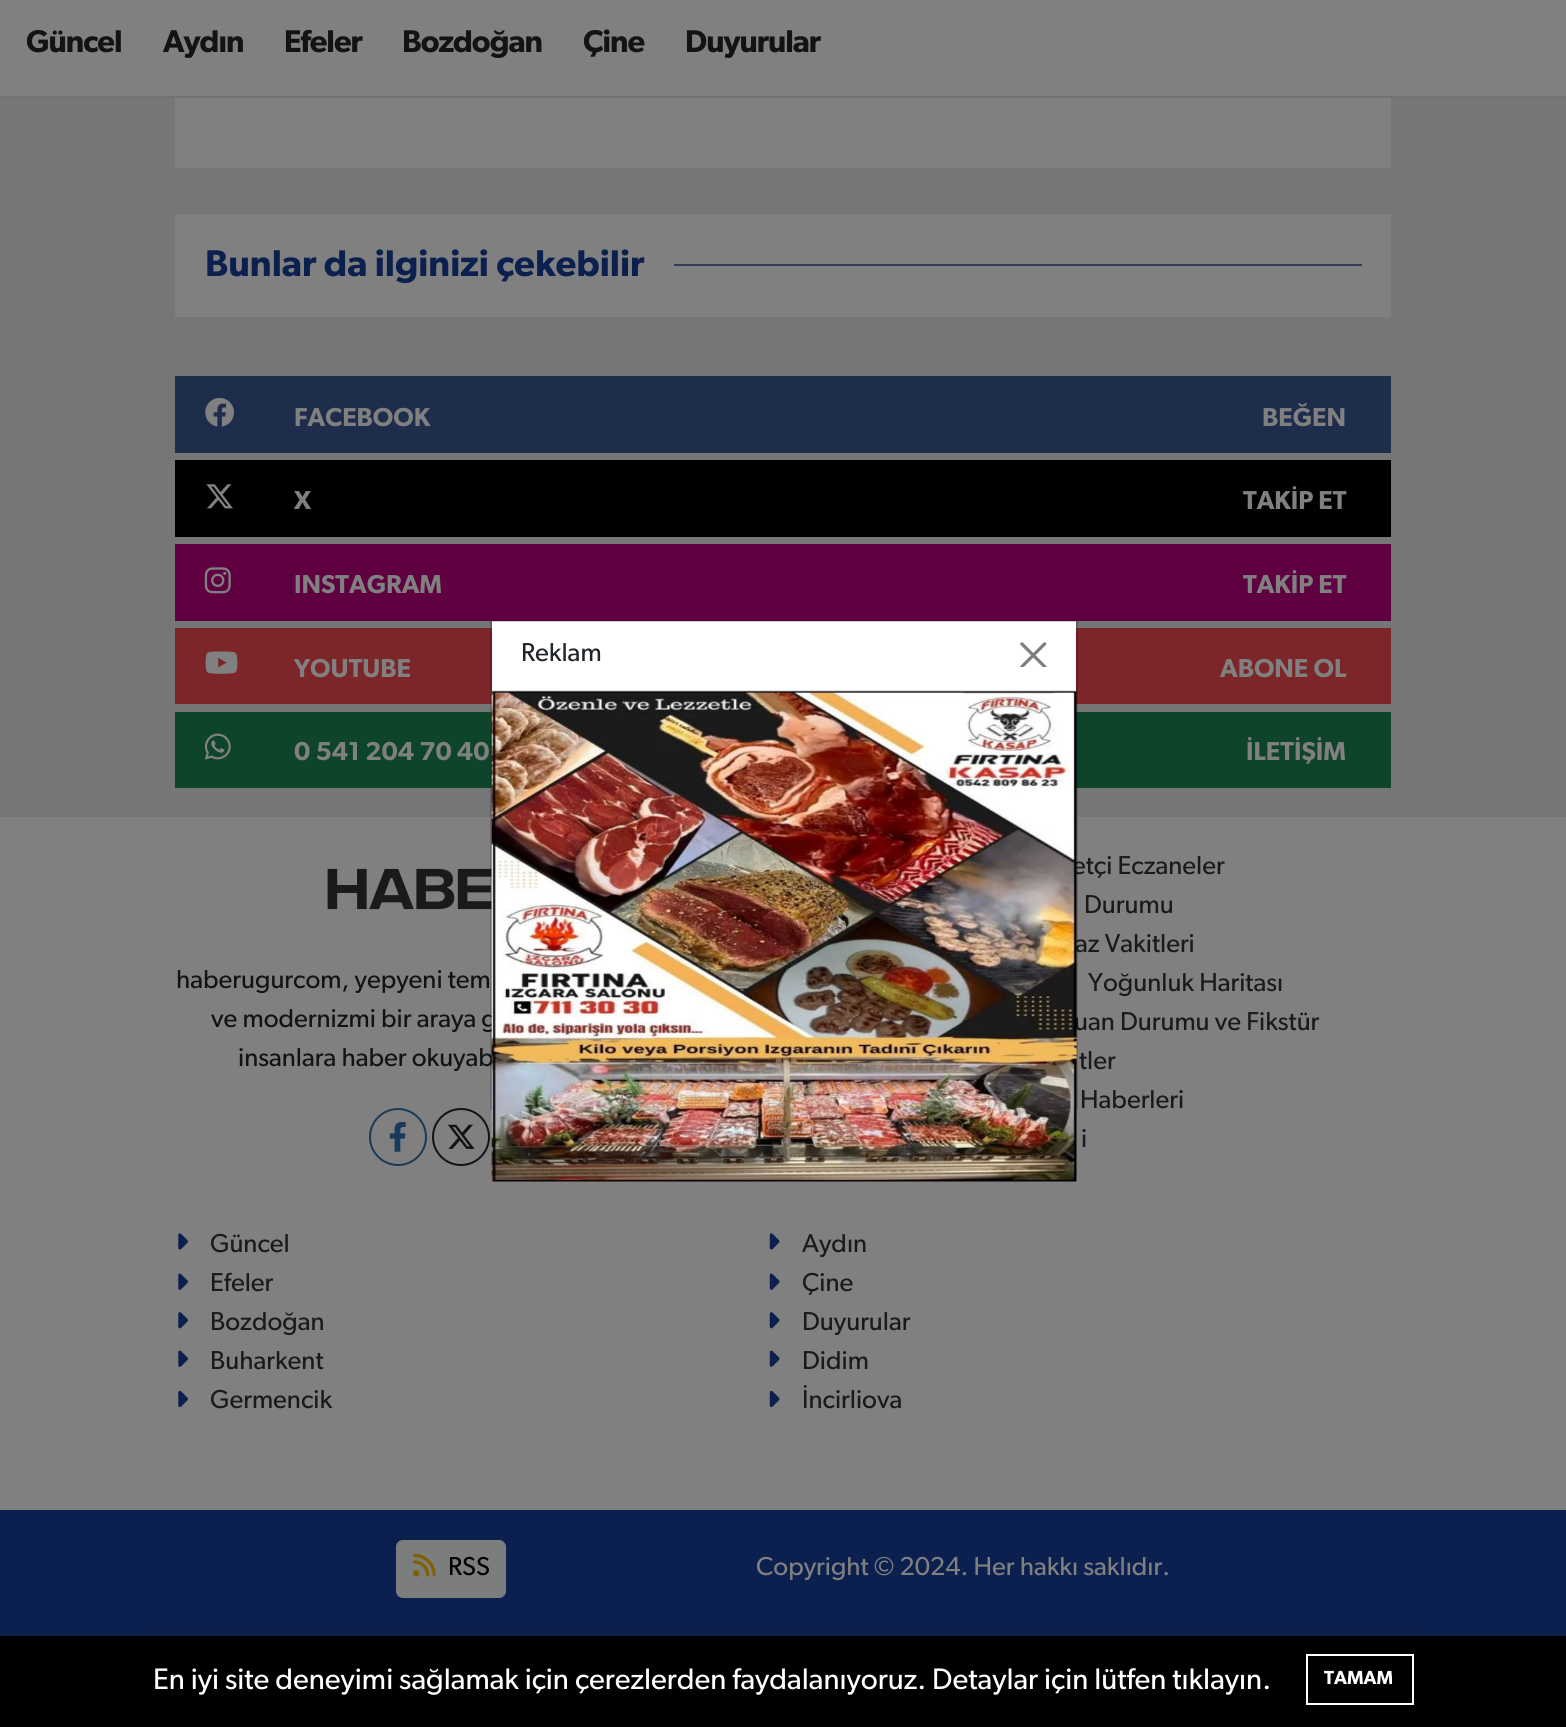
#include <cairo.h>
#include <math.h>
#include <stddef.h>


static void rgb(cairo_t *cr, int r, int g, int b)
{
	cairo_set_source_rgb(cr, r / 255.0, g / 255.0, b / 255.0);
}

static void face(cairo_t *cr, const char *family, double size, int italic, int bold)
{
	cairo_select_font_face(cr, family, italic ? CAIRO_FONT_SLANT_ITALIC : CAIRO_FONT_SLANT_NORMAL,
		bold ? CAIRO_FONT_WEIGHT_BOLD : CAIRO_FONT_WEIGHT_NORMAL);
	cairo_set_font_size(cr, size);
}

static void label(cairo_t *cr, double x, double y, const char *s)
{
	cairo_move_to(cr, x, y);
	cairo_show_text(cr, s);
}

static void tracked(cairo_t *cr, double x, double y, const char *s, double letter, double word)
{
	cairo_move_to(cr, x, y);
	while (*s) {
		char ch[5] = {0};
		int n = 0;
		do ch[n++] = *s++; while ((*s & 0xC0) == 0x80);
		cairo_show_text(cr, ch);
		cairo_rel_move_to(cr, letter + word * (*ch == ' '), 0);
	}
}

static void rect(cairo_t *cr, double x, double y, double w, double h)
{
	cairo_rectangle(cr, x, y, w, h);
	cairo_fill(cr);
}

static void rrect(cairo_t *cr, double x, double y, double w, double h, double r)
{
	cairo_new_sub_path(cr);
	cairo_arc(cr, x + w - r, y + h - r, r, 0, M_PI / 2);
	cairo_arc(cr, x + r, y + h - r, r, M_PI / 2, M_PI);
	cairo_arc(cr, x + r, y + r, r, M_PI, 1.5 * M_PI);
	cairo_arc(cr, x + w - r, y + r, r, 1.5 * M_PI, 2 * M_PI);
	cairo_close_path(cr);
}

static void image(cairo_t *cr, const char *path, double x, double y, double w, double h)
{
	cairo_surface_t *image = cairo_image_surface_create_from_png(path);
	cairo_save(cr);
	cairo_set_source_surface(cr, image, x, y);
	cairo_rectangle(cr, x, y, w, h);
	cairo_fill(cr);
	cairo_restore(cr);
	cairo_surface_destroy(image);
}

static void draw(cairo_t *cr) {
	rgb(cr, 117, 118, 120);
	cairo_paint(cr);
	rgb(cr, 128, 128, 128);
	rect(cr, 0, 0, 1566, 96);
	rgb(cr, 115, 115, 115);
	rect(cr, 0, 96, 1566, 2);
	face(cr, "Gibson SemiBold", 31.5, 0, 0);
	rgb(cr, 17, 19, 21);
	tracked(cr, 26, 52, "Güncel", -1, 0);
	tracked(cr, 163, 52, "Aydın", -1, 0);
	tracked(cr, 284, 52, "Efeler", -1, 0);
	tracked(cr, 402, 52, "Bozdoğan", -1, 0);
	tracked(cr, 583, 52, "Çine", -1, 0);
	tracked(cr, 685, 52, "Duyurular", -1, 0);
	rgb(cr, 128, 128, 128);
	rect(cr, 175, 98, 1216, 70);
	rect(cr, 175, 214, 1216, 103);
	face(cr, "Gibson SemiBold", 37.25, 0, 0);
	rgb(cr, 12, 32, 79);
	label(cr, 205, 276, "Bunlar da ilginizi çekebilir");
	rgb(cr, 47, 61, 94);
	rect(cr, 674, 264, 688, 2);
	rgb(cr, 30, 45, 76);
	rect(cr, 175, 376, 1216, 77);
	image(cr, "image0.png", 205, 397, 29, 30);
	face(cr, "Gibson SemiBold", 26, 0, 0);
	rgb(cr, 128, 128, 128);
	label(cr, 294, 426, "FACEBOOK");
	label(cr, 1262, 426, "BEĞEN");
	rgb(cr, 0, 0, 0);
	rect(cr, 175, 460, 1216, 77);
	image(cr, "image1.png", 206, 484, 27, 25);
	rgb(cr, 128, 128, 128);
	label(cr, 294, 509, "X");
	label(cr, 1243, 509, "TAKİP ET");
	rgb(cr, 95, 0, 65);
	rect(cr, 175, 544, 1216, 77);
	image(cr, "image2.png", 204, 567, 27, 27);
	rgb(cr, 128, 128, 128);
	label(cr, 294, 593, "INSTAGRAM");
	label(cr, 1243, 593, "TAKİP ET");
	rgb(cr, 124, 38, 42);
	rect(cr, 175, 628, 1216, 76);
	image(cr, "image3.png", 205, 651, 33, 23);
	rgb(cr, 128, 128, 128);
	label(cr, 294, 677, "YOUTUBE");
	label(cr, 1220, 677, "ABONE OL");
	rgb(cr, 13, 68, 42);
	rect(cr, 175, 712, 1216, 76);
	image(cr, "image4.png", 204, 733, 27, 27);
	rgb(cr, 128, 128, 128);
	label(cr, 294, 760, "0 541 204 70 40");
	label(cr, 1246, 760, "İLETİŞİM");
	rgb(cr, 255, 255, 255);
	rect(cr, 492, 621, 584, 69);
	rgb(cr, 128, 128, 128);
	rect(cr, 0, 817, 1566, 693);
	image(cr, "image7.png", 327, 868, 165, 42);
	face(cr, "Gibson", 26, 0, 0);
	rgb(cr, 17, 19, 21);
	label(cr, 211, 1027, "ve modernizmi bir araya g");
	label(cr, 238, 1066, "insanlara haber okuyab");
	rgb(cr, 26, 26, 26);
	label(cr, 1072, 874, "etçi Eczaneler");
	label(cr, 1075, 952, "az Vakitleri");
	label(cr, 1074, 1030, "uan Durumu ve Fikstür");
	cairo_rectangle(cr, 491, 621, 586, 488);
	cairo_set_source_rgba(cr, 0, 0, 0, 0.18);
	cairo_stroke(cr);
	rgb(cr, 222, 226, 230);
	rect(cr, 492, 690, 584, 2);
	rgb(cr, 33, 37, 41);
	label(cr, 521, 661, "Reklam");
	image(cr, "image5.png", 1020, 642, 27, 25);
	image(cr, "image6.png", 491, 691, 586, 491);
	rgb(cr, 17, 19, 21);
	label(cr, 176, 988, "haberugurcom, yepyeni tem");
	cairo_new_path(cr);
	cairo_arc(cr, 398, 1137, 28, 0, 2 * M_PI);
	rgb(cr, 25, 59, 90);
	cairo_stroke(cr);
	image(cr, "image8.png", 389, 1122, 17, 30);
	cairo_arc(cr, 461, 1137, 28, 0, 2 * M_PI);
	rgb(cr, 17, 19, 21);
	cairo_stroke(cr);
	image(cr, "image9.png", 447, 1124, 28, 25);
	rgb(cr, 26, 26, 26);
	label(cr, 1084, 913, "Durumu");
	label(cr, 1088, 991, "Yoğunluk Haritası");
	label(cr, 1079, 1069, "tler");
	label(cr, 1080, 1108, "Haberleri");
	label(cr, 1081, 1147, "i");
	image(cr, "image10.png", 178, 1233, 10, 17);
	label(cr, 210, 1252, "Güncel");
	image(cr, "image11.png", 769, 1233, 11, 17);
	label(cr, 802, 1252, "Aydın");
	image(cr, "image12.png", 178, 1273, 10, 17);
	label(cr, 210, 1291, "Efeler");
	image(cr, "image13.png", 769, 1273, 11, 17);
	label(cr, 802, 1291, "Çine");
	image(cr, "image14.png", 178, 1312, 10, 17);
	label(cr, 210, 1330, "Bozdoğan");
	image(cr, "image15.png", 769, 1312, 11, 17);
	label(cr, 802, 1330, "Duyurular");
	image(cr, "image12.png", 178, 1350, 10, 17);
	label(cr, 210, 1369, "Buharkent");
	image(cr, "image13.png", 769, 1350, 11, 17);
	label(cr, 802, 1369, "Didim");
	image(cr, "image16.png", 178, 1390, 10, 18);
	label(cr, 210, 1408, "Germencik");
	image(cr, "image17.png", 769, 1390, 11, 18);
	label(cr, 802, 1408, "İncirliova");
	rgb(cr, 12, 32, 79);
	rect(cr, 0, 1510, 1566, 126);
	rgb(cr, 124, 125, 125);
	rrect(cr, 397, 1541, 108, 56, 6);
	cairo_fill_preserve(cr);
	cairo_stroke(cr);
	image(cr, "image18.png", 413, 1553, 23, 24);
	rgb(cr, 0, 0, 0);
	label(cr, 448, 1575, "RSS");
	rgb(cr, 128, 128, 128);
	label(cr, 756, 1575, "Copyright © 2024. Her hakkı saklıdır.");
	rgb(cr, 13, 29, 65);
	rect(cr, 154, 1628, 1260, 2);
	rgb(cr, 0, 0, 0);
	rect(cr, 0, 1636, 1566, 91);
	face(cr, "Gibson", 29.75, 0, 0);
	rgb(cr, 255, 255, 255);
	label(cr, 153, 1689, "En iyi site deneyimi sağlamak için çerezlerden faydalanıyoruz. Detaylar için lütfen tıklayın.");
	cairo_rectangle(cr, 1307, 1655, 106, 49);
	cairo_stroke(cr);
	face(cr, "Gibson SemiBold", 19, 0, 0);
	label(cr, 1324, 1684, "TAMAM");
}

int main(void) {
	cairo_surface_t *surface = cairo_image_surface_create(CAIRO_FORMAT_RGB24, 1566, 1727);
	cairo_t *cr = cairo_create(surface);
	cairo_font_options_t *options = cairo_font_options_create();
	cairo_font_options_set_hint_metrics(options, CAIRO_HINT_METRICS_OFF);
	cairo_font_options_set_hint_style(options, CAIRO_HINT_STYLE_NONE);
	cairo_set_font_options(cr, options);
	cairo_set_miter_limit(cr, 4);
	draw(cr);
	cairo_surface_write_to_png(surface, "render.png");
	cairo_font_options_destroy(options);
	cairo_destroy(cr);
	cairo_surface_destroy(surface);
	return 0;
}
